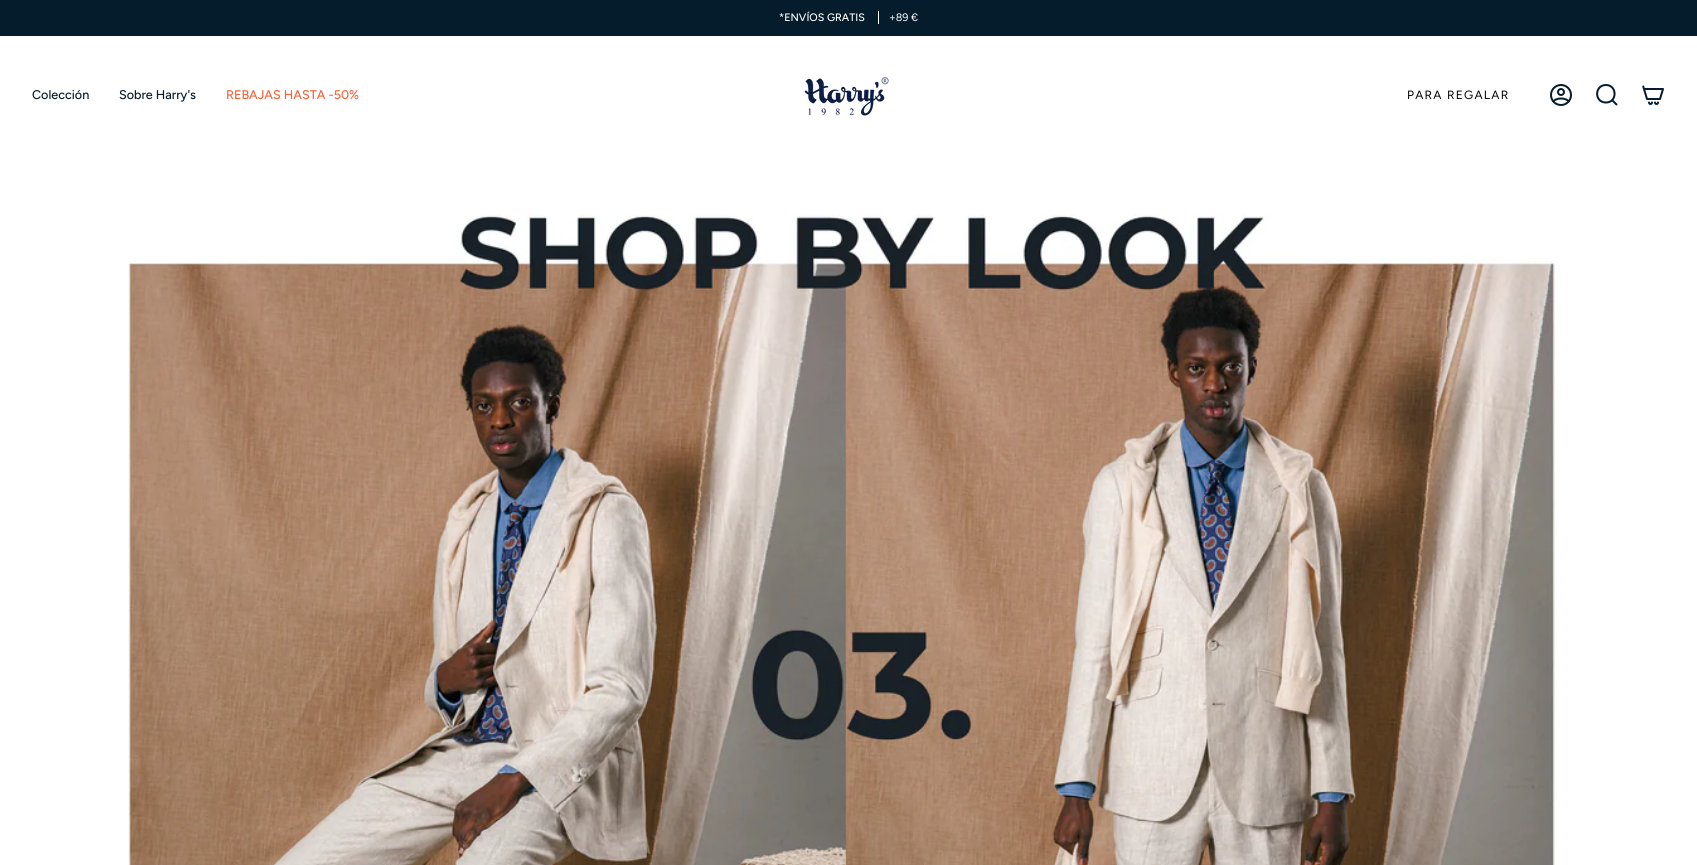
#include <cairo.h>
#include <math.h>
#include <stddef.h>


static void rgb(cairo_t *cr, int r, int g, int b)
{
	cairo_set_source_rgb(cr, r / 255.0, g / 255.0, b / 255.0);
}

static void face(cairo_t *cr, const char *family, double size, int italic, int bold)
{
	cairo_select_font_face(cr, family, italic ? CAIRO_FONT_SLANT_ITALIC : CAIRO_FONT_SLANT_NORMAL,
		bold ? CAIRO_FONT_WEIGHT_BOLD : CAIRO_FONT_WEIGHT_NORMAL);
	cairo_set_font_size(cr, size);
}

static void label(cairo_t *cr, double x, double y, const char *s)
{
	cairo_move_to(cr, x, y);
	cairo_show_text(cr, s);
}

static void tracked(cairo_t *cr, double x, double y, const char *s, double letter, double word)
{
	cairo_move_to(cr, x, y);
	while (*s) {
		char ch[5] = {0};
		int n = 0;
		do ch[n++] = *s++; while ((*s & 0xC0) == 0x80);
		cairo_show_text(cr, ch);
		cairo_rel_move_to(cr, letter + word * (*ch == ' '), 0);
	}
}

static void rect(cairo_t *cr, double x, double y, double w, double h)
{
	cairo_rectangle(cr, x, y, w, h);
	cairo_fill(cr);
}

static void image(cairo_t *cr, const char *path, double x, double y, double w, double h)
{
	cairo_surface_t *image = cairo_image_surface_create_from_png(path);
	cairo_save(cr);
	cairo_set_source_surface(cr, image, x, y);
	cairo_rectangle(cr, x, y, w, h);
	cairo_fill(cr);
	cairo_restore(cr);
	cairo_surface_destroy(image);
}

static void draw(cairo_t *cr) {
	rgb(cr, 255, 255, 255);
	cairo_paint(cr);
	rgb(cr, 5, 28, 44);
	rect(cr, 0, 0, 1697, 36);
	face(cr, "Figtree Medium", 10.75, 0, 0);
	rgb(cr, 255, 255, 255);
	label(cr, 779, 21, "*ENVÍOS GRATIS");
	rect(cr, 878, 11, 1, 13);
	face(cr, "Figtree", 10.75, 0, 0);
	label(cr, 889, 21, "+89 €");
	face(cr, "Figtree Medium", 12.6, 0, 0);
	rgb(cr, 5, 28, 44);
	label(cr, 32, 99, "Colección");
	label(cr, 119, 99, "Sobre Harry's");
	rgb(cr, 244, 99, 58);
	label(cr, 226, 99, "REBAJAS HASTA -50%");
	image(cr, "image0.png", 804, 77, 85, 39);
	face(cr, "Figtree", 12, 0, 0);
	rgb(cr, 0, 0, 0);
	tracked(cr, 1407, 99, "PARA REGALAR", 1.25, 0);
	image(cr, "image1.png", 1550, 84, 22, 22);
	cairo_new_path(cr);
	cairo_move_to(cr, 1606, 85);
	cairo_curve_to(cr, 1617.5, 85, 1617.5, 103, 1605.5, 102.5);
	cairo_curve_to(cr, 1594, 102, 1594.5, 85, 1606, 85);
	cairo_close_path(cr);
	cairo_move_to(cr, 1612, 100);
	cairo_line_to(cr, 1617, 105);
	rgb(cr, 5, 28, 44);
	cairo_stroke(cr);
	image(cr, "image2.png", 1642, 85, 22, 20);
	image(cr, "image3.png", 128, 214, 1429, 651);
}

int main(void) {
	cairo_surface_t *surface = cairo_image_surface_create(CAIRO_FORMAT_RGB24, 1697, 865);
	cairo_t *cr = cairo_create(surface);
	cairo_font_options_t *options = cairo_font_options_create();
	cairo_font_options_set_hint_metrics(options, CAIRO_HINT_METRICS_OFF);
	cairo_font_options_set_hint_style(options, CAIRO_HINT_STYLE_NONE);
	cairo_set_font_options(cr, options);
	cairo_set_miter_limit(cr, 4);
	draw(cr);
	cairo_surface_write_to_png(surface, "render.png");
	cairo_font_options_destroy(options);
	cairo_destroy(cr);
	cairo_surface_destroy(surface);
	return 0;
}
